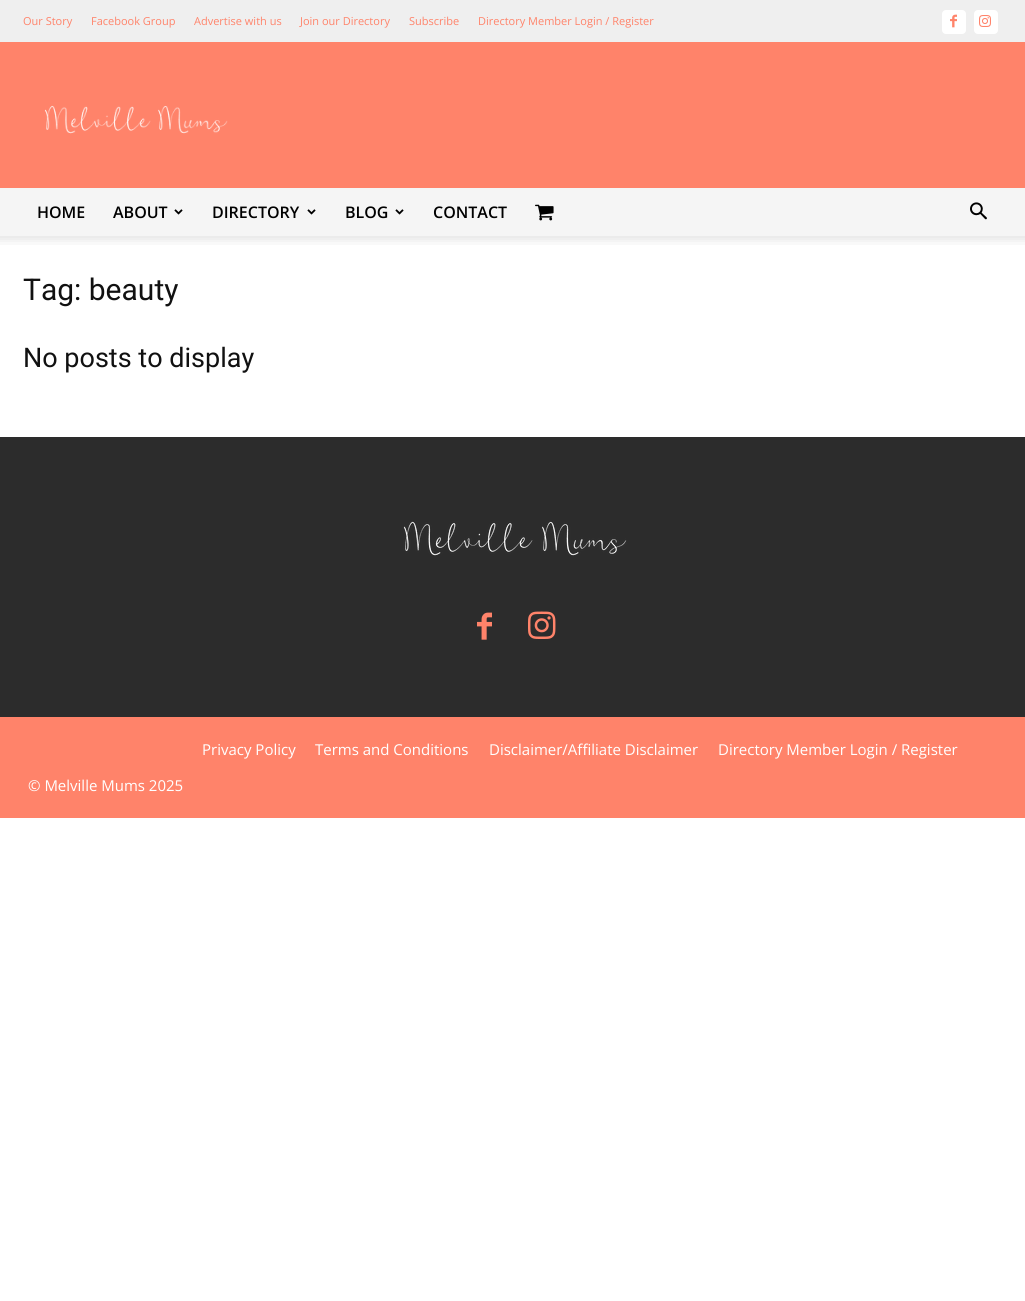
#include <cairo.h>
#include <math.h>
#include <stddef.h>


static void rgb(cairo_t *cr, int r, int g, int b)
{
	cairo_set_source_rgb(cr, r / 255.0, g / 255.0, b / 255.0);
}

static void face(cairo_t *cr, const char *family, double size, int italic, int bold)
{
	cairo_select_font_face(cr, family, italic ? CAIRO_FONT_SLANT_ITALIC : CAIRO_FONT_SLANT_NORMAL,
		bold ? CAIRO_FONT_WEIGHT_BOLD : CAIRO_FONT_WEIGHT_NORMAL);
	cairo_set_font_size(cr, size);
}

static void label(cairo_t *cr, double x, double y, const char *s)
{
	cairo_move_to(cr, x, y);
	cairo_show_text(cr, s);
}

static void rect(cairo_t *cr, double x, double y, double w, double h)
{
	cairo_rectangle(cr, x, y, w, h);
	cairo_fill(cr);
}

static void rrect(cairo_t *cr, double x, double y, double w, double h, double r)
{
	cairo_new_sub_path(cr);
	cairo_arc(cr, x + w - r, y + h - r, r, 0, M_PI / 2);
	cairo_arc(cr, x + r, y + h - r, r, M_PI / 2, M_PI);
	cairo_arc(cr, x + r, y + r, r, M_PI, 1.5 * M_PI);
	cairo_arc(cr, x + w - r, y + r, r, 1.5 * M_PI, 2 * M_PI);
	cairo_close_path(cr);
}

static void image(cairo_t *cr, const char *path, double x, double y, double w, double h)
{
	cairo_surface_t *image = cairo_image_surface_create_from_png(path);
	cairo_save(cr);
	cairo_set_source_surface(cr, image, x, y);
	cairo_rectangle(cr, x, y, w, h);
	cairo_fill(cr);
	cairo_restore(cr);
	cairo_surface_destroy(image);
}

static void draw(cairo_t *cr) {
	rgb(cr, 255, 255, 255);
	cairo_paint(cr);
	rgb(cr, 239, 239, 239);
	rect(cr, 0, 0, 1025, 42);
	face(cr, "Open Sans", 11, 0, 0);
	rgb(cr, 255, 131, 106);
	label(cr, 23, 25, "Our Story");
	label(cr, 91, 25, "Facebook Group");
	label(cr, 194, 25, "Advertise with us");
	label(cr, 300, 25, "Join our Directory");
	label(cr, 409, 25, "Subscribe");
	label(cr, 478, 25, "Directory Member Login / Register");
	rgb(cr, 255, 255, 255);
	rrect(cr, 942, 10, 24, 24, 4);
	cairo_fill(cr);
	image(cr, "image0.png", 950, 14, 7, 14);
	rrect(cr, 974, 10, 24, 24, 4);
	cairo_fill(cr);
	image(cr, "image1.png", 979, 15, 12, 12);
	rgb(cr, 255, 131, 106);
	rect(cr, 0, 42, 1025, 146);
	image(cr, "image2.png", 44, 105, 184, 29);
	rgb(cr, 245, 245, 245);
	rect(cr, 0, 188, 1025, 48);
	face(cr, "Open Sans SemiBold", 16, 0, 0);
	rgb(cr, 0, 0, 0);
	label(cr, 37, 218, "HOME");
	label(cr, 113, 218, "ABOUT");
	image(cr, "image3.png", 174, 209, 9, 6);
	label(cr, 212, 218, "DIRECTORY");
	image(cr, "image3.png", 307, 209, 9, 6);
	label(cr, 345, 218, "BLOG");
	image(cr, "image3.png", 395, 209, 9, 6);
	label(cr, 433, 218, "CONTACT");
	image(cr, "image4.png", 535, 204, 19, 17);
	image(cr, "image5.png", 970, 202, 17, 18);
	image(cr, "image6.png", 0, 236, 1025, 9);
	face(cr, "Roboto", 30, 0, 0);
	rgb(cr, 17, 17, 17);
	label(cr, 23, 300, "Tag: beauty");
	face(cr, "Roboto", 27, 0, 0);
	label(cr, 23, 367, "No posts to display");
	rgb(cr, 44, 44, 44);
	rect(cr, 0, 437, 1025, 280);
	image(cr, "image7.png", 403, 521, 224, 35);
	image(cr, "image8.png", 477, 612, 15, 28);
	image(cr, "image9.png", 528, 611, 28, 28);
	rgb(cr, 255, 131, 106);
	rect(cr, 0, 717, 1025, 101);
	face(cr, "Open Sans", 15, 0, 0);
	rgb(cr, 255, 255, 255);
	label(cr, 202, 755, "Privacy Policy");
	label(cr, 315, 755, "Terms and Conditions");
	label(cr, 489, 755, "Disclaimer/Affiliate Disclaimer");
	label(cr, 718, 755, "Directory Member Login / Register");
	label(cr, 28, 791, "© Melville Mums 2025");
}

int main(void) {
	cairo_surface_t *surface = cairo_image_surface_create(CAIRO_FORMAT_RGB24, 1025, 1301);
	cairo_t *cr = cairo_create(surface);
	cairo_font_options_t *options = cairo_font_options_create();
	cairo_font_options_set_hint_metrics(options, CAIRO_HINT_METRICS_OFF);
	cairo_font_options_set_hint_style(options, CAIRO_HINT_STYLE_NONE);
	cairo_set_font_options(cr, options);
	cairo_set_miter_limit(cr, 4);
	draw(cr);
	cairo_surface_write_to_png(surface, "render.png");
	cairo_font_options_destroy(options);
	cairo_destroy(cr);
	cairo_surface_destroy(surface);
	return 0;
}
